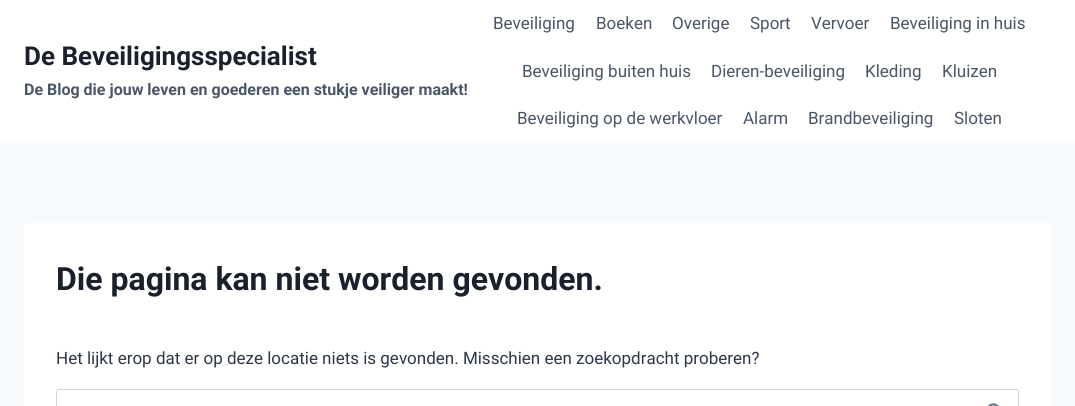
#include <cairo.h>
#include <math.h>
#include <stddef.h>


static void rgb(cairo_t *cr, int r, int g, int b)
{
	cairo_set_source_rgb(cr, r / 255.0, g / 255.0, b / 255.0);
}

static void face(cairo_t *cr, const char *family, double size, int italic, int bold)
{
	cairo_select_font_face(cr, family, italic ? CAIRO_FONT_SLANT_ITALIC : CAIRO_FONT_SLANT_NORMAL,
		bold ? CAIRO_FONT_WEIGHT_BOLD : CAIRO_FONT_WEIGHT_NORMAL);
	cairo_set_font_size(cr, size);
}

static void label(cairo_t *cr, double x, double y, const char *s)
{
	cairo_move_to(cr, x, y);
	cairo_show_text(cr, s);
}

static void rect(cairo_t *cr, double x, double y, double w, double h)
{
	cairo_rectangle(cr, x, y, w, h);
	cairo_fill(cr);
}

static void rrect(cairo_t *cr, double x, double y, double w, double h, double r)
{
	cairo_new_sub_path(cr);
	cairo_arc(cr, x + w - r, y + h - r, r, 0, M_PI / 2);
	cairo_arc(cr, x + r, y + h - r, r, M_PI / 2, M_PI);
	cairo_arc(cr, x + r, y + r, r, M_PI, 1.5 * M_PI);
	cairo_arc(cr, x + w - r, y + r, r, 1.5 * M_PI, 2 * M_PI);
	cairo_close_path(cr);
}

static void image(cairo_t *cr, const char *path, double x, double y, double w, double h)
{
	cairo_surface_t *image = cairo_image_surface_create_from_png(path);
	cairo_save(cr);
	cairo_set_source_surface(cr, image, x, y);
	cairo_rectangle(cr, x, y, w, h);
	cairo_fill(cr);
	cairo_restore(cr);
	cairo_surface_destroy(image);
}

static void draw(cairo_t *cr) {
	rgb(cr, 247, 250, 252);
	cairo_paint(cr);
	rgb(cr, 255, 255, 255);
	rect(cr, 0, 0, 1075, 143);
	face(cr, "Roboto", 26, 0, 1);
	rgb(cr, 26, 32, 44);
	label(cr, 24, 65, "De Beveiligingsspecialist");
	face(cr, "Roboto", 16, 0, 1);
	rgb(cr, 74, 85, 104);
	label(cr, 24, 95, "De Blog die jouw leven en goederen een stukje veiliger maakt!");
	face(cr, "Roboto", 17, 0, 0);
	label(cr, 493, 29, "Beveiliging");
	label(cr, 596, 29, "Boeken");
	label(cr, 672, 29, "Overige");
	label(cr, 750, 29, "Sport");
	label(cr, 811, 29, "Vervoer");
	label(cr, 890, 29, "Beveiliging in huis");
	label(cr, 522, 77, "Beveiliging buiten huis");
	label(cr, 711, 77, "Dieren-beveiliging");
	label(cr, 865, 77, "Kleding");
	label(cr, 942, 77, "Kluizen");
	label(cr, 517, 124, "Beveiliging op de werkvloer");
	label(cr, 743, 124, "Alarm");
	label(cr, 808, 124, "Brandbeveiliging");
	label(cr, 954, 124, "Sloten");
	rgb(cr, 255, 255, 255);
	rrect(cr, 24, 223, 1027, 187, 4);
	cairo_fill(cr);
	face(cr, "Roboto", 32, 0, 1);
	rgb(cr, 26, 32, 44);
	label(cr, 56, 290, "Die pagina kan niet worden gevonden.");
	face(cr, "Roboto", 17, 0, 0);
	rgb(cr, 45, 55, 72);
	label(cr, 56, 364, "Het lijkt erop dat er op deze locatie niets is gevonden. Misschien een zoekopdracht proberen?");
	rrect(cr, 56.5, 389.5, 962, 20, 2.5);
	rgb(cr, 203, 213, 224);
	cairo_set_line_width(cr, 1);
	cairo_stroke(cr);
	image(cr, "image0.png", 988, 403, 11, 3);
}

int main(void) {
	cairo_surface_t *surface = cairo_image_surface_create(CAIRO_FORMAT_RGB24, 1075, 406);
	cairo_t *cr = cairo_create(surface);
	cairo_font_options_t *options = cairo_font_options_create();
	cairo_font_options_set_hint_metrics(options, CAIRO_HINT_METRICS_OFF);
	cairo_font_options_set_hint_style(options, CAIRO_HINT_STYLE_NONE);
	cairo_set_font_options(cr, options);
	cairo_set_miter_limit(cr, 4);
	draw(cr);
	cairo_surface_write_to_png(surface, "render.png");
	cairo_font_options_destroy(options);
	cairo_destroy(cr);
	cairo_surface_destroy(surface);
	return 0;
}
